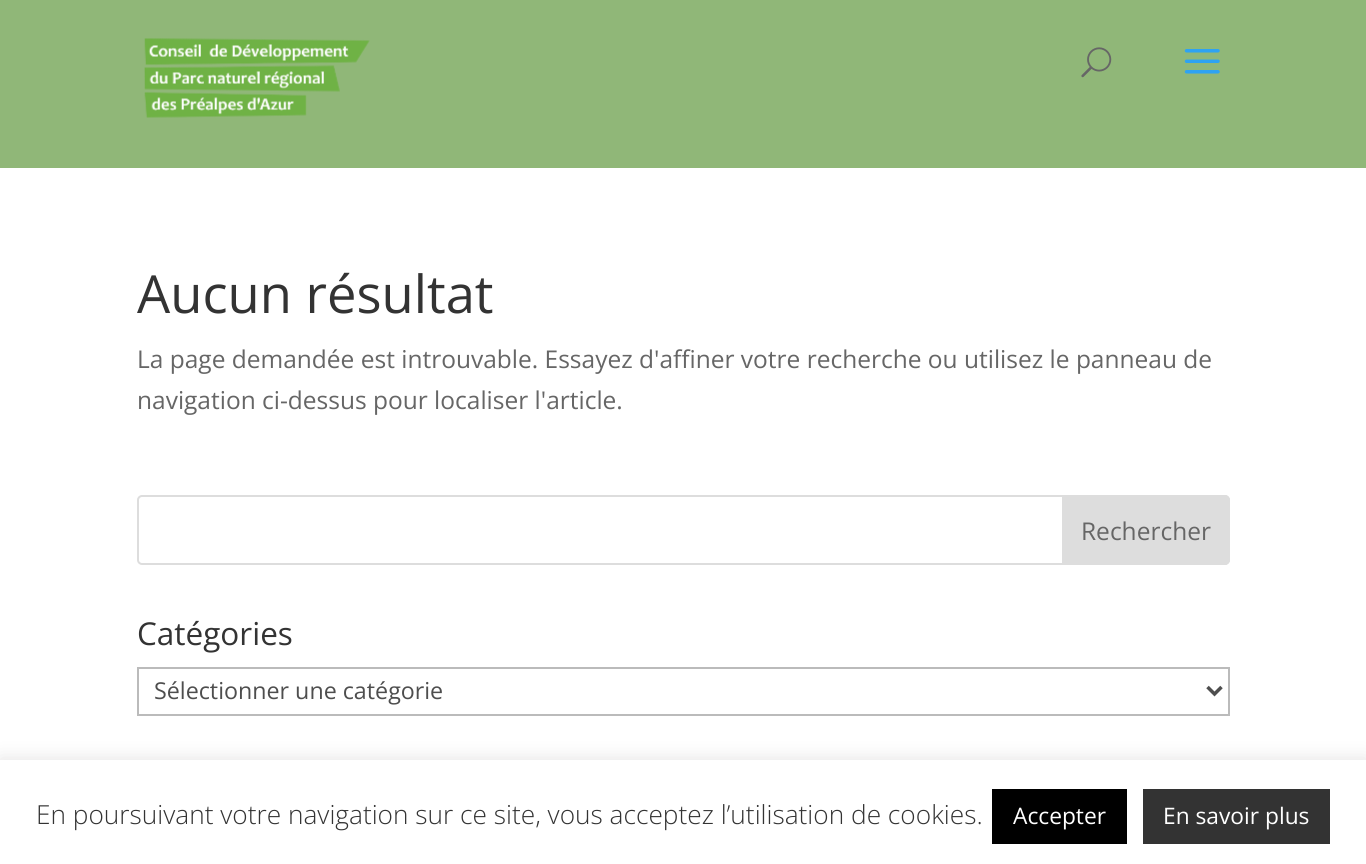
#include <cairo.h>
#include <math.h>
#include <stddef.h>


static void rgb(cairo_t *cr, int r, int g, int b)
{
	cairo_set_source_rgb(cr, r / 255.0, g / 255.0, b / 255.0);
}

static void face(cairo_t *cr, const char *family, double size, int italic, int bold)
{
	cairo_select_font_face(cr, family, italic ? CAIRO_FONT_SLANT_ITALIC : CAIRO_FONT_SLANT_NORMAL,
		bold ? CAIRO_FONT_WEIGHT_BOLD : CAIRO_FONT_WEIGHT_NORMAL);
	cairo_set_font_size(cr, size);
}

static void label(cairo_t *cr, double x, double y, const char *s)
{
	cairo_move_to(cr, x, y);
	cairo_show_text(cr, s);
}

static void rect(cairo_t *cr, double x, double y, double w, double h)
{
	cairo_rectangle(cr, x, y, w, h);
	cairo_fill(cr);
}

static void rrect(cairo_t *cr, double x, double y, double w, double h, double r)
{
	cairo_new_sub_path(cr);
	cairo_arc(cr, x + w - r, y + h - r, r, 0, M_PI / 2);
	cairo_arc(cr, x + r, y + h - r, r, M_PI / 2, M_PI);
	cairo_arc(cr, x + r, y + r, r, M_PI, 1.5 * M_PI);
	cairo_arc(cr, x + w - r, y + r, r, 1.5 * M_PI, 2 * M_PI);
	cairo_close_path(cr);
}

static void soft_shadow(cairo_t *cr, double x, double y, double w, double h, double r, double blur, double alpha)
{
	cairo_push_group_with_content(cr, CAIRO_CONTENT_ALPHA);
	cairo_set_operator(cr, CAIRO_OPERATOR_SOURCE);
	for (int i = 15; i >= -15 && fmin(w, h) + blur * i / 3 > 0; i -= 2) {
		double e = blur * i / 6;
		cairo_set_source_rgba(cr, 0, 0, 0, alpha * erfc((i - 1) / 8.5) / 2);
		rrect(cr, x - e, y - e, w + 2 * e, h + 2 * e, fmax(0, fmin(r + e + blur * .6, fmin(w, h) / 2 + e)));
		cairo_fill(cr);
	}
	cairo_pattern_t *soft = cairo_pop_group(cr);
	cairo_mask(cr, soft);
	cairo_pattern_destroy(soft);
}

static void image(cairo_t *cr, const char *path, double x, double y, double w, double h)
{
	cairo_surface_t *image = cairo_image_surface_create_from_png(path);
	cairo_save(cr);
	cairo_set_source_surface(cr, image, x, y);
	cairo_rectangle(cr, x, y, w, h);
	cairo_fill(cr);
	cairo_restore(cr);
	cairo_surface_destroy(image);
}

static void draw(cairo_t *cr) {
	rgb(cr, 255, 255, 255);
	cairo_paint(cr);
	rgb(cr, 144, 183, 120);
	rect(cr, 0, 0, 1366, 168);
	image(cr, "image0.png", 144, 38, 226, 80);
	image(cr, "image1.png", 1081, 47, 31, 31);
	image(cr, "image2.png", 1184, 49, 36, 25);
	face(cr, "Open Sans", 52.5, 0, 0);
	rgb(cr, 51, 51, 51);
	label(cr, 137, 313, "Aucun résultat");
	face(cr, "Open Sans", 24.5, 0, 0);
	rgb(cr, 102, 102, 102);
	label(cr, 137, 368, "La page demandée est introuvable. Essayez d'affiner votre recherche ou utilisez le panneau de");
	label(cr, 137, 409, "navigation ci-dessus pour localiser l'article.");
	rrect(cr, 138, 496, 1091, 68, 4);
	rgb(cr, 221, 221, 221);
	cairo_stroke(cr);
	cairo_new_path(cr);
	cairo_move_to(cr, 1063, 496);
	cairo_line_to(cr, 1225, 496);
	cairo_curve_to(cr, 1227, 496, 1229, 498, 1229, 500);
	cairo_line_to(cr, 1229, 560);
	cairo_curve_to(cr, 1229, 562, 1227, 564, 1225, 564);
	cairo_line_to(cr, 1063, 564);
	cairo_close_path(cr);
	cairo_fill_preserve(cr);
	cairo_stroke(cr);
	rgb(cr, 102, 102, 102);
	label(cr, 1081, 540, "Rechercher");
	face(cr, "Open Sans", 31.5, 0, 0);
	rgb(cr, 51, 51, 51);
	label(cr, 137, 645, "Catégories");
	cairo_rectangle(cr, 138, 668, 1091, 47);
	rgb(cr, 187, 187, 187);
	cairo_stroke(cr);
	cairo_new_path(cr);
	cairo_move_to(cr, 1207.5, 687);
	cairo_line_to(cr, 1214.5, 694);
	cairo_line_to(cr, 1221.5, 687);
	rgb(cr, 78, 78, 78);
	cairo_set_line_width(cr, 3.5);
	cairo_stroke(cr);
	face(cr, "Open Sans", 23.25, 0, 0);
	label(cr, 154, 699, "Sélectionner une catégorie");
	rgb(cr, 172, 171, 171);
	soft_shadow(cr, 0, 758, 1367, 105, 0, 9, 0.3);
	rgb(cr, 255, 255, 255);
	rect(cr, 0, 760, 1366, 104);
	face(cr, "Open Sans Light", 26.25, 0, 0);
	rgb(cr, 51, 51, 51);
	label(cr, 36, 824, "En poursuivant votre navigation sur ce site, vous acceptez l’utilisation de cookies.");
	rgb(cr, 0, 0, 0);
	rect(cr, 992, 789, 135, 55);
	face(cr, "Open Sans", 22.75, 0, 0);
	rgb(cr, 255, 255, 255);
	label(cr, 1013, 824, "Accepter");
	rgb(cr, 51, 51, 51);
	rect(cr, 1143, 789, 187, 55);
	rgb(cr, 255, 255, 255);
	label(cr, 1163, 824, "En savoir plus");
}

int main(void) {
	cairo_surface_t *surface = cairo_image_surface_create(CAIRO_FORMAT_RGB24, 1366, 864);
	cairo_t *cr = cairo_create(surface);
	cairo_font_options_t *options = cairo_font_options_create();
	cairo_font_options_set_hint_metrics(options, CAIRO_HINT_METRICS_OFF);
	cairo_font_options_set_hint_style(options, CAIRO_HINT_STYLE_NONE);
	cairo_set_font_options(cr, options);
	cairo_set_miter_limit(cr, 4);
	draw(cr);
	cairo_surface_write_to_png(surface, "render.png");
	cairo_font_options_destroy(options);
	cairo_destroy(cr);
	cairo_surface_destroy(surface);
	return 0;
}
